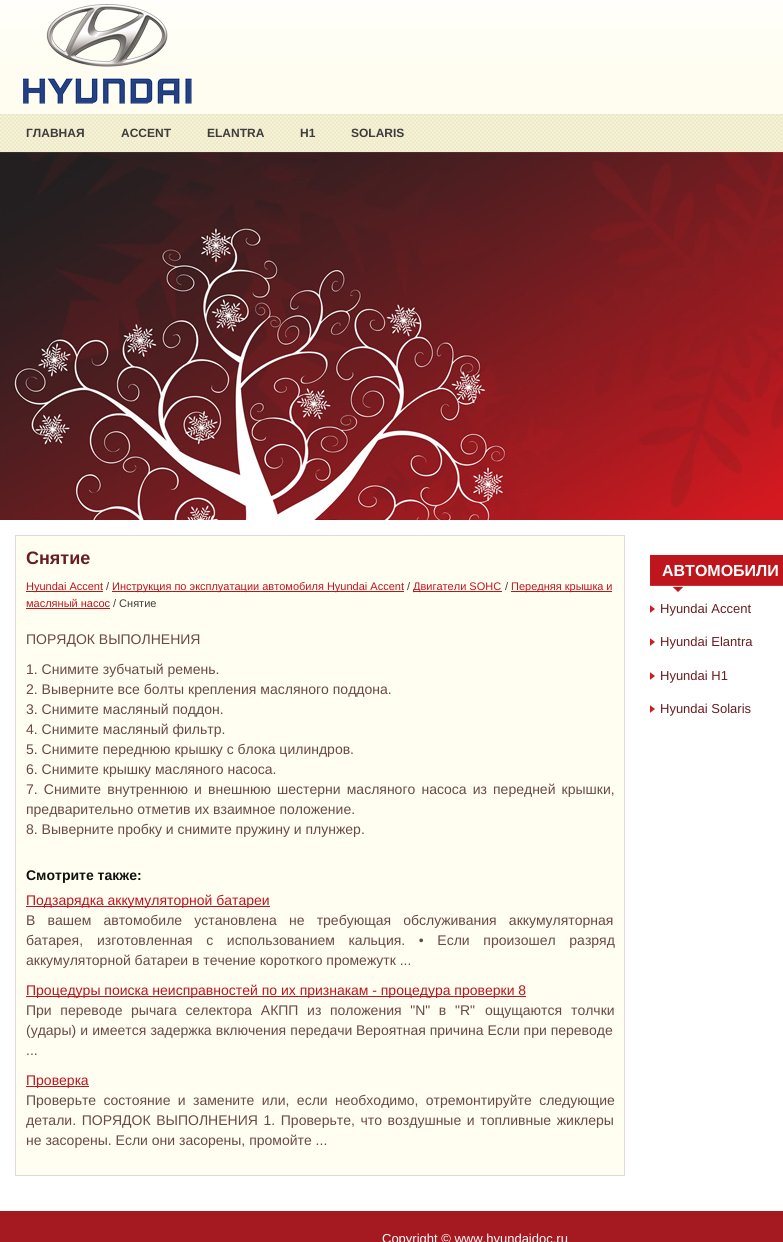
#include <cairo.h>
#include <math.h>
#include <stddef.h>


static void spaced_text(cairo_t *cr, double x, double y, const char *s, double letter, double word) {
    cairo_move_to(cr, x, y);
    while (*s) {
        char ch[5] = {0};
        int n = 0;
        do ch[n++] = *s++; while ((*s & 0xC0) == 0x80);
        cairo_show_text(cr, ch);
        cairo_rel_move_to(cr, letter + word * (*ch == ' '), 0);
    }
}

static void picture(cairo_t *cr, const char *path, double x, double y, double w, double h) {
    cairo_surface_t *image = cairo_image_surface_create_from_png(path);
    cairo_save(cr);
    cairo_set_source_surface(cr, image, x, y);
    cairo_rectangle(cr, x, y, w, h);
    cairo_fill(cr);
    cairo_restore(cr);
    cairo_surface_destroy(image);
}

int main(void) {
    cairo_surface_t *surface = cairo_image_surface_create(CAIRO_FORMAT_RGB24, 783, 1242);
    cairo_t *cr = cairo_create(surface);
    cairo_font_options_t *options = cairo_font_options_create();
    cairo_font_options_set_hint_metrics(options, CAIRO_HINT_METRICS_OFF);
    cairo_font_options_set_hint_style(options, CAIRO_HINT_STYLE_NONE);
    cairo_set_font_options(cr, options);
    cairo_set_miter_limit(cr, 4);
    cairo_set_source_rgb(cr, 1, 1, 1);
    cairo_paint(cr);
    picture(cr, "img1.png", 0, 152, 783, 368);
    picture(cr, "img2.png", 0, 0, 783, 114);
    picture(cr, "img3.png", 23, 4, 169, 100);
    picture(cr, "img4.png", 0, 114, 783, 38);
    cairo_select_font_face(cr, "Liberation Sans", CAIRO_FONT_SLANT_NORMAL, CAIRO_FONT_WEIGHT_BOLD);
    cairo_set_font_size(cr, 12);
    cairo_set_source_rgb(cr, 0.243, 0.235, 0.235);
    cairo_move_to(cr, 26, 137);
    cairo_show_text(cr, "ГЛАВНАЯ");
    cairo_move_to(cr, 121, 137);
    cairo_show_text(cr, "ACCENT");
    cairo_move_to(cr, 207, 137);
    cairo_show_text(cr, "ELANTRA");
    cairo_move_to(cr, 300, 137);
    cairo_show_text(cr, "H1");
    cairo_move_to(cr, 351, 137);
    cairo_show_text(cr, "SOLARIS");
    cairo_set_source_rgb(cr, 1, 0.996, 0.941);
    cairo_rectangle(cr, 15.5, 535.5, 609, 640);
    cairo_fill_preserve(cr);
    cairo_set_source_rgb(cr, 0.882, 0.847, 0.847);
    cairo_set_line_width(cr, 1);
    cairo_stroke(cr);
    cairo_set_font_size(cr, 18);
    cairo_set_source_rgb(cr, 0.408, 0.114, 0.129);
    cairo_move_to(cr, 26, 564);
    cairo_show_text(cr, "Снятие");
    cairo_set_source_rgb(cr, 0.749, 0.082, 0.11);
    cairo_rectangle(cr, 26, 591, 77, 1);
    cairo_fill(cr);
    cairo_select_font_face(cr, "Liberation Sans", CAIRO_FONT_SLANT_NORMAL, CAIRO_FONT_WEIGHT_NORMAL);
    cairo_set_font_size(cr, 11);
    cairo_move_to(cr, 26, 590);
    cairo_show_text(cr, "Hyundai Accent");
    cairo_set_source_rgb(cr, 0.243, 0.235, 0.235);
    cairo_move_to(cr, 106, 590);
    cairo_show_text(cr, "/");
    cairo_set_source_rgb(cr, 0.749, 0.082, 0.11);
    cairo_rectangle(cr, 112, 591, 292, 1);
    cairo_fill(cr);
    cairo_move_to(cr, 112, 590);
    cairo_show_text(cr, "Инструкция по эксплуатации автомобиля Hyundai Accent");
    cairo_set_source_rgb(cr, 0.243, 0.235, 0.235);
    cairo_move_to(cr, 407, 590);
    cairo_show_text(cr, "/");
    cairo_set_source_rgb(cr, 0.749, 0.082, 0.11);
    cairo_rectangle(cr, 413, 591, 89, 1);
    cairo_fill(cr);
    cairo_move_to(cr, 413, 590);
    cairo_show_text(cr, "Двигатели SOHC");
    cairo_set_source_rgb(cr, 0.243, 0.235, 0.235);
    cairo_move_to(cr, 505, 590);
    cairo_show_text(cr, "/");
    cairo_set_source_rgb(cr, 0.749, 0.082, 0.11);
    cairo_rectangle(cr, 511, 591, 101, 1);
    cairo_fill(cr);
    cairo_move_to(cr, 511, 590);
    cairo_show_text(cr, "Передняя крышка и");
    cairo_move_to(cr, 26, 607);
    cairo_show_text(cr, "масляный насос");
    cairo_rectangle(cr, 26, 608, 84, 1);
    cairo_fill(cr);
    cairo_set_source_rgb(cr, 0.243, 0.235, 0.235);
    cairo_move_to(cr, 113, 607);
    cairo_show_text(cr, "/ Снятие");
    cairo_set_font_size(cr, 14);
    cairo_set_source_rgb(cr, 0.416, 0.282, 0.286);
    cairo_move_to(cr, 26, 644);
    cairo_show_text(cr, "ПОРЯДОК ВЫПОЛНЕНИЯ");
    cairo_move_to(cr, 26, 674);
    cairo_show_text(cr, "1. Снимите зубчатый ремень.");
    cairo_move_to(cr, 26, 694);
    cairo_show_text(cr, "2. Выверните все болты крепления масляного поддона.");
    cairo_move_to(cr, 26, 714);
    cairo_show_text(cr, "3. Снимите масляный поддон.");
    cairo_move_to(cr, 26, 734);
    cairo_show_text(cr, "4. Снимите масляный фильтр.");
    cairo_move_to(cr, 26, 754);
    cairo_show_text(cr, "5. Снимите переднюю крышку с блока цилиндров.");
    cairo_move_to(cr, 26, 774);
    cairo_show_text(cr, "6. Снимите крышку масляного насоса.");
    spaced_text(cr, 26, 794, "7. Снимите внутреннюю и внешнюю шестерни масляного насоса из передней крышки,", 0, 2.25);
    cairo_move_to(cr, 26, 814);
    cairo_show_text(cr, "предварительно отметив их взаимное положение.");
    cairo_move_to(cr, 26, 834);
    cairo_show_text(cr, "8. Выверните пробку и снимите пружину и плунжер.");
    cairo_select_font_face(cr, "Liberation Sans", CAIRO_FONT_SLANT_NORMAL, CAIRO_FONT_WEIGHT_BOLD);
    cairo_set_source_rgb(cr, 0.067, 0.067, 0.067);
    cairo_move_to(cr, 26, 880);
    cairo_show_text(cr, "Смотрите также:");
    cairo_set_source_rgb(cr, 0.749, 0.082, 0.11);
    cairo_rectangle(cr, 26, 906, 244, 1);
    cairo_fill(cr);
    cairo_select_font_face(cr, "Liberation Sans", CAIRO_FONT_SLANT_NORMAL, CAIRO_FONT_WEIGHT_NORMAL);
    cairo_move_to(cr, 26, 905);
    cairo_show_text(cr, "Подзарядка аккумуляторной батареи");
    cairo_set_source_rgb(cr, 0.416, 0.282, 0.286);
    spaced_text(cr, 26, 925, "В вашем автомобиле установлена не требующая обслуживания аккумуляторная", 0, 8.25);
    cairo_move_to(cr, 26, 945);
    cairo_show_text(cr, "батарея,");
    spaced_text(cr, 97, 945, "изготовленная с использованием кальция. • Если произошел разряд", 0, 9.75);
    cairo_move_to(cr, 26, 965);
    cairo_show_text(cr, "аккумуляторной батареи в течение короткого промежутк ...");
    cairo_set_source_rgb(cr, 0.749, 0.082, 0.11);
    cairo_rectangle(cr, 26, 996, 500, 1);
    cairo_fill(cr);
    cairo_move_to(cr, 26, 995);
    cairo_show_text(cr, "Процедуры поиска неисправностей по их признакам - процедура проверки 8");
    cairo_set_source_rgb(cr, 0.416, 0.282, 0.286);
    spaced_text(cr, 26, 1015, "При переводе рычага селектора АКПП из положения \"N\" в \"R\"", 0, 4.75);
    spaced_text(cr, 485, 1015, "ощущаются толчки", 0, 5);
    spaced_text(cr, 26, 1035, "(удары) и имеется задержка включения передачи", 0, 0.25);
    cairo_move_to(cr, 356, 1035);
    cairo_show_text(cr, "Вероятная причина Если при переводе");
    cairo_move_to(cr, 26, 1055);
    cairo_show_text(cr, "...");
    cairo_set_source_rgb(cr, 0.749, 0.082, 0.11);
    cairo_rectangle(cr, 26, 1086, 63, 1);
    cairo_fill(cr);
    cairo_move_to(cr, 26, 1085);
    cairo_show_text(cr, "Проверка");
    cairo_set_source_rgb(cr, 0.416, 0.282, 0.286);
    spaced_text(cr, 26, 1105, "Проверьте состояние и замените или, если необходимо, отремонтируйте следующие", 0, 3.5);
    spaced_text(cr, 26, 1125, "детали. ПОРЯДОК ВЫПОЛНЕНИЯ 1. Проверьте, что воздушные и топливные жиклеры", 0, 1.75);
    cairo_move_to(cr, 26, 1145);
    cairo_show_text(cr, "не засорены. Если они засорены, промойте ...");
    picture(cr, "img5.png", 650, 555, 133, 37);
    cairo_select_font_face(cr, "Liberation Sans", CAIRO_FONT_SLANT_NORMAL, CAIRO_FONT_WEIGHT_BOLD);
    cairo_set_font_size(cr, 16);
    cairo_set_source_rgb(cr, 1, 1, 1);
    cairo_move_to(cr, 662, 576);
    cairo_show_text(cr, "АВТОМОБИЛИ");
    picture(cr, "img6.png", 650, 605, 5, 8);
    cairo_select_font_face(cr, "Liberation Sans", CAIRO_FONT_SLANT_NORMAL, CAIRO_FONT_WEIGHT_NORMAL);
    cairo_set_font_size(cr, 13);
    cairo_set_source_rgb(cr, 0.408, 0.114, 0.129);
    cairo_move_to(cr, 660, 613);
    cairo_show_text(cr, "Hyundai Accent");
    picture(cr, "img6.png", 650, 638, 5, 8);
    cairo_move_to(cr, 660, 646);
    cairo_show_text(cr, "Hyundai Elantra");
    picture(cr, "img6.png", 650, 672, 5, 8);
    cairo_move_to(cr, 660, 680);
    cairo_show_text(cr, "Hyundai H1");
    picture(cr, "img6.png", 650, 705, 5, 8);
    cairo_move_to(cr, 660, 713);
    cairo_show_text(cr, "Hyundai Solaris");
    cairo_set_source_rgb(cr, 0.647, 0.102, 0.129);
    cairo_rectangle(cr, 0, 1211, 783, 31);
    cairo_fill(cr);
    cairo_set_source_rgb(cr, 1, 1, 1);
    cairo_move_to(cr, 382, 1243);
    cairo_show_text(cr, "Copyright © www.hyundaidoc.ru");
    cairo_surface_write_to_png(surface, "page.png");
    cairo_font_options_destroy(options);
    cairo_destroy(cr);
    cairo_surface_destroy(surface);
    return 0;
}
